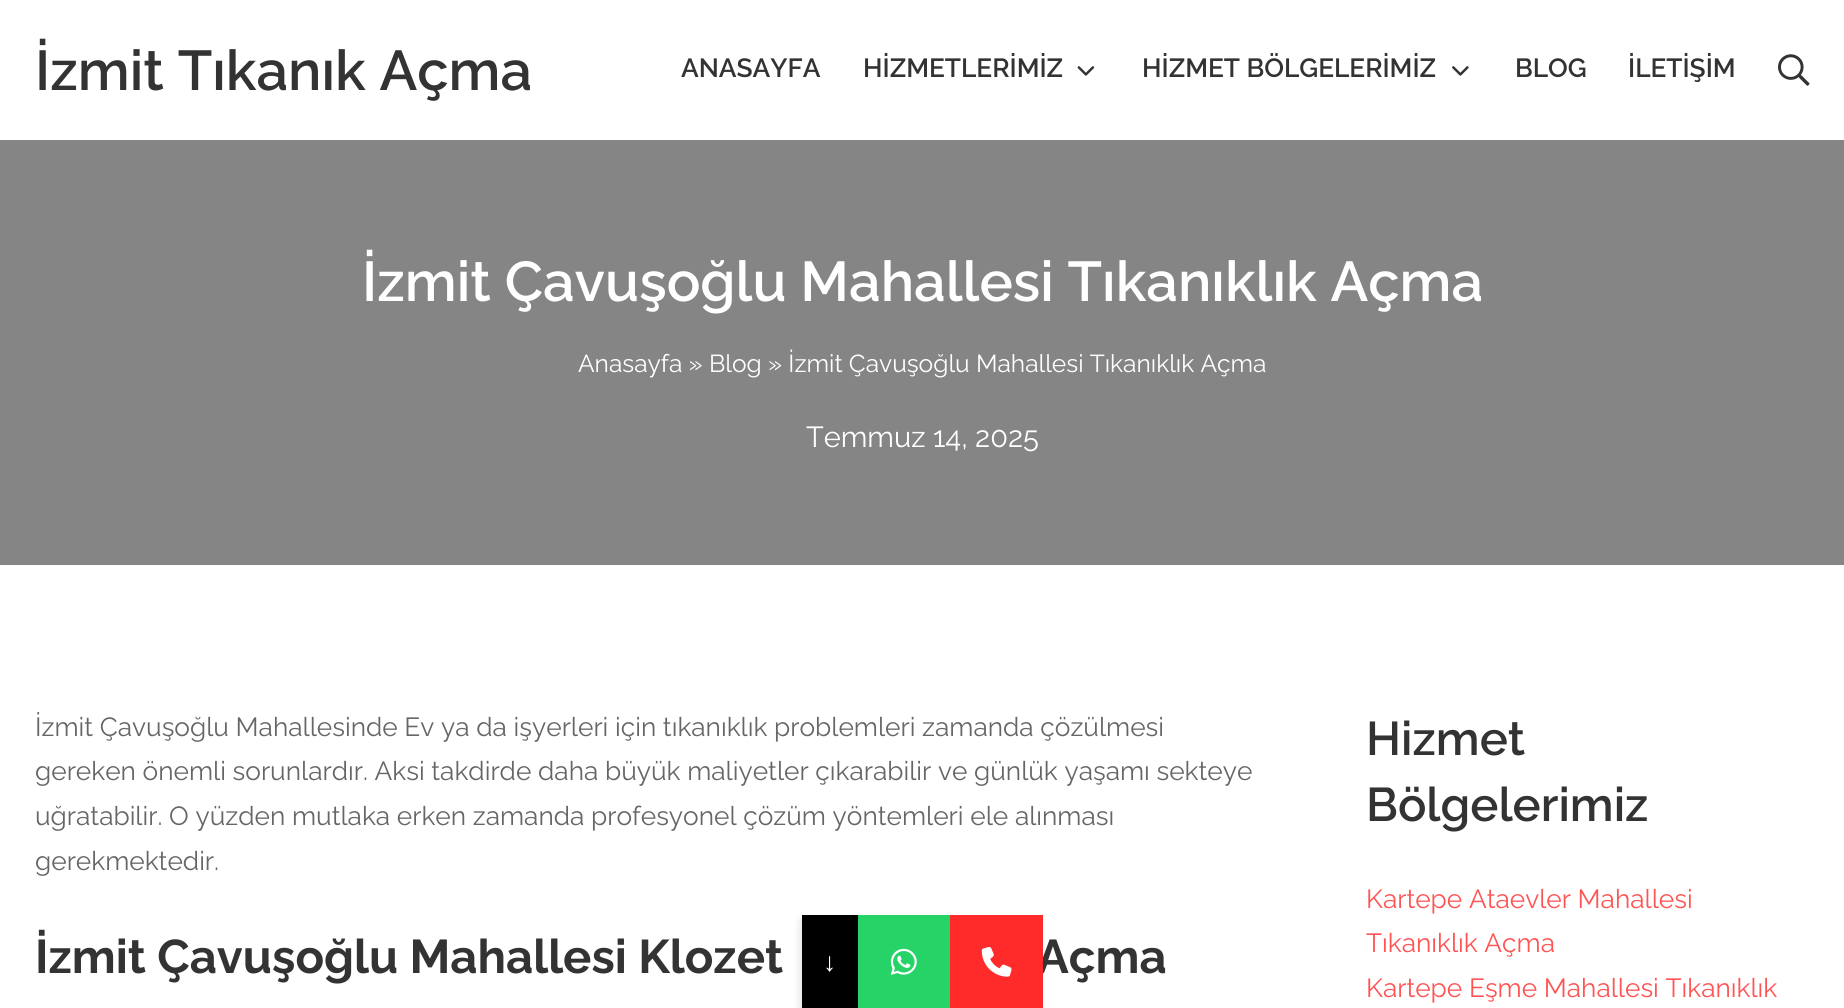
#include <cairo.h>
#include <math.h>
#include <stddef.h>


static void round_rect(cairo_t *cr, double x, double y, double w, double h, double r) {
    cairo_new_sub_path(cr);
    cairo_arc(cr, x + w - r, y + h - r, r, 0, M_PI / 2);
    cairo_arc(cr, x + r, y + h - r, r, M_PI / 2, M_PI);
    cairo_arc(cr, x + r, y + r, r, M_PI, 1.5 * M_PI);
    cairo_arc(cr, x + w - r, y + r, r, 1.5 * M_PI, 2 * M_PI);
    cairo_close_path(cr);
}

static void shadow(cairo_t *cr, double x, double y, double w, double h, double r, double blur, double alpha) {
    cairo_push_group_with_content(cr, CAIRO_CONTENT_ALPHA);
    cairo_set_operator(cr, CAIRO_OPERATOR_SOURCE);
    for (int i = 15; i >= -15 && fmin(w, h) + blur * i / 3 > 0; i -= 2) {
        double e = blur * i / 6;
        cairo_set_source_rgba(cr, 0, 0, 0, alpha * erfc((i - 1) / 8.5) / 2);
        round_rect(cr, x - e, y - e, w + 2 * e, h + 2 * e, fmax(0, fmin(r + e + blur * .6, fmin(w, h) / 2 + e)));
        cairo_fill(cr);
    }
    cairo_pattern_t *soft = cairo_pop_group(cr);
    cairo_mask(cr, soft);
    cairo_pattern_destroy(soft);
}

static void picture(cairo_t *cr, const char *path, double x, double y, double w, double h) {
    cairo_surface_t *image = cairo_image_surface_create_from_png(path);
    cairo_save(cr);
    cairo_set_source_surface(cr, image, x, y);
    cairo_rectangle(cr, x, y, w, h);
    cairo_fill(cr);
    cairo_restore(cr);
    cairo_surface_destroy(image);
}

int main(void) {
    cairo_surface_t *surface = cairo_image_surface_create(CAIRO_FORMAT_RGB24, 1844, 1008);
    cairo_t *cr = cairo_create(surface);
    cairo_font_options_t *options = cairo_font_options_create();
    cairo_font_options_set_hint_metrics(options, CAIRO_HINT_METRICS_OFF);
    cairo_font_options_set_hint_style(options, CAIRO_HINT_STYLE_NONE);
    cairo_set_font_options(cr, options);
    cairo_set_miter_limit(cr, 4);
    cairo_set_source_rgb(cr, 1, 1, 1);
    cairo_paint(cr);
    cairo_select_font_face(cr, "Raleway SemiBold", CAIRO_FONT_SLANT_NORMAL, CAIRO_FONT_WEIGHT_NORMAL);
    cairo_set_font_size(cr, 56);
    cairo_set_source_rgb(cr, 0.2, 0.2, 0.2);
    cairo_move_to(cr, 35, 90);
    cairo_show_text(cr, "İzmit Tıkanık Açma");
    cairo_set_font_size(cr, 26.25);
    cairo_move_to(cr, 681, 77);
    cairo_show_text(cr, "ANASAYFA");
    cairo_move_to(cr, 863, 77);
    cairo_show_text(cr, "HİZMETLERİMİZ");
    picture(cr, "img1.png", 1077, 66, 18, 10);
    cairo_move_to(cr, 1142, 77);
    cairo_show_text(cr, "HİZMET BÖLGELERİMİZ");
    picture(cr, "img2.png", 1452, 66, 17, 10);
    cairo_move_to(cr, 1515, 77);
    cairo_show_text(cr, "BLOG");
    cairo_move_to(cr, 1628, 77);
    cairo_show_text(cr, "İLETİŞİM");
    picture(cr, "img3.png", 1778, 54, 32, 32);
    cairo_set_source_rgb(cr, 0.522, 0.522, 0.522);
    cairo_rectangle(cr, 0, 140, 1844, 425);
    cairo_fill(cr);
    cairo_set_font_size(cr, 56);
    cairo_set_source_rgb(cr, 1, 1, 1);
    cairo_move_to(cr, 362, 301);
    cairo_show_text(cr, "İzmit Çavuşoğlu Mahallesi Tıkanıklık Açma");
    cairo_select_font_face(cr, "Raleway", CAIRO_FONT_SLANT_NORMAL, CAIRO_FONT_WEIGHT_NORMAL);
    cairo_set_font_size(cr, 24.55);
    cairo_move_to(cr, 578, 372);
    cairo_show_text(cr, "Anasayfa » Blog » İzmit Çavuşoğlu Mahallesi Tıkanıklık Açma");
    cairo_set_font_size(cr, 29);
    cairo_move_to(cr, 806, 447);
    cairo_show_text(cr, "Temmuz 14, 2025");
    cairo_set_font_size(cr, 26.25);
    cairo_set_source_rgb(cr, 0.4, 0.4, 0.4);
    cairo_move_to(cr, 35, 736);
    cairo_show_text(cr, "İzmit Çavuşoğlu Mahallesinde Ev ya da işyerleri için tıkanıklık problemleri zamanda çözülmesi");
    cairo_move_to(cr, 35, 780);
    cairo_show_text(cr, "gereken önemli sorunlardır. Aksi takdirde daha büyük maliyetler çıkarabilir ve günlük yaşamı sekteye");
    cairo_move_to(cr, 35, 825);
    cairo_show_text(cr, "uğratabilir. O yüzden mutlaka erken zamanda profesyonel çözüm yöntemleri ele alınması");
    cairo_move_to(cr, 35, 870);
    cairo_show_text(cr, "gerekmektedir.");
    cairo_select_font_face(cr, "Raleway", CAIRO_FONT_SLANT_NORMAL, CAIRO_FONT_WEIGHT_BOLD);
    cairo_set_font_size(cr, 47.25);
    cairo_set_source_rgb(cr, 0.2, 0.2, 0.2);
    cairo_move_to(cr, 35, 973);
    cairo_show_text(cr, "İzmit Çavuşoğlu Mahallesi Klozet");
    cairo_move_to(cr, 1037, 973);
    cairo_show_text(cr, "Açma");
    cairo_select_font_face(cr, "Raleway SemiBold", CAIRO_FONT_SLANT_NORMAL, CAIRO_FONT_WEIGHT_NORMAL);
    cairo_move_to(cr, 1366, 755);
    cairo_show_text(cr, "Hizmet");
    cairo_move_to(cr, 1366, 821);
    cairo_show_text(cr, "Bölgelerimiz");
    cairo_select_font_face(cr, "Raleway", CAIRO_FONT_SLANT_NORMAL, CAIRO_FONT_WEIGHT_NORMAL);
    cairo_set_font_size(cr, 26.25);
    cairo_set_source_rgb(cr, 0.996, 0.329, 0.329);
    cairo_move_to(cr, 1366, 908);
    cairo_show_text(cr, "Kartepe Ataevler Mahallesi");
    cairo_move_to(cr, 1366, 952);
    cairo_show_text(cr, "Tıkanıklık Açma");
    cairo_move_to(cr, 1366, 997);
    cairo_show_text(cr, "Kartepe Eşme Mahallesi Tıkanıklık");
    cairo_set_source_rgb(cr, 0, 0, 0);
    shadow(cr, 802, 921, 56, 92, 0, 5, 0.16);
    cairo_set_source_rgb(cr, 0, 0, 0);
    cairo_rectangle(cr, 802, 915, 56, 93);
    cairo_fill(cr);
    cairo_select_font_face(cr, "Liberation Serif", CAIRO_FONT_SLANT_NORMAL, CAIRO_FONT_WEIGHT_NORMAL);
    cairo_set_source_rgb(cr, 1, 1, 1);
    cairo_move_to(cr, 823, 971);
    cairo_show_text(cr, "↓");
    cairo_set_source_rgb(cr, 0.149, 0.827, 0.404);
    cairo_rectangle(cr, 858, 915, 92, 93);
    cairo_fill(cr);
    picture(cr, "img4.png", 890, 948, 27, 27);
    cairo_set_source_rgb(cr, 1, 0.169, 0.169);
    cairo_rectangle(cr, 950, 915, 93, 93);
    cairo_fill(cr);
    picture(cr, "img5.png", 981, 947, 31, 30);
    cairo_surface_write_to_png(surface, "page.png");
    cairo_font_options_destroy(options);
    cairo_destroy(cr);
    cairo_surface_destroy(surface);
    return 0;
}
